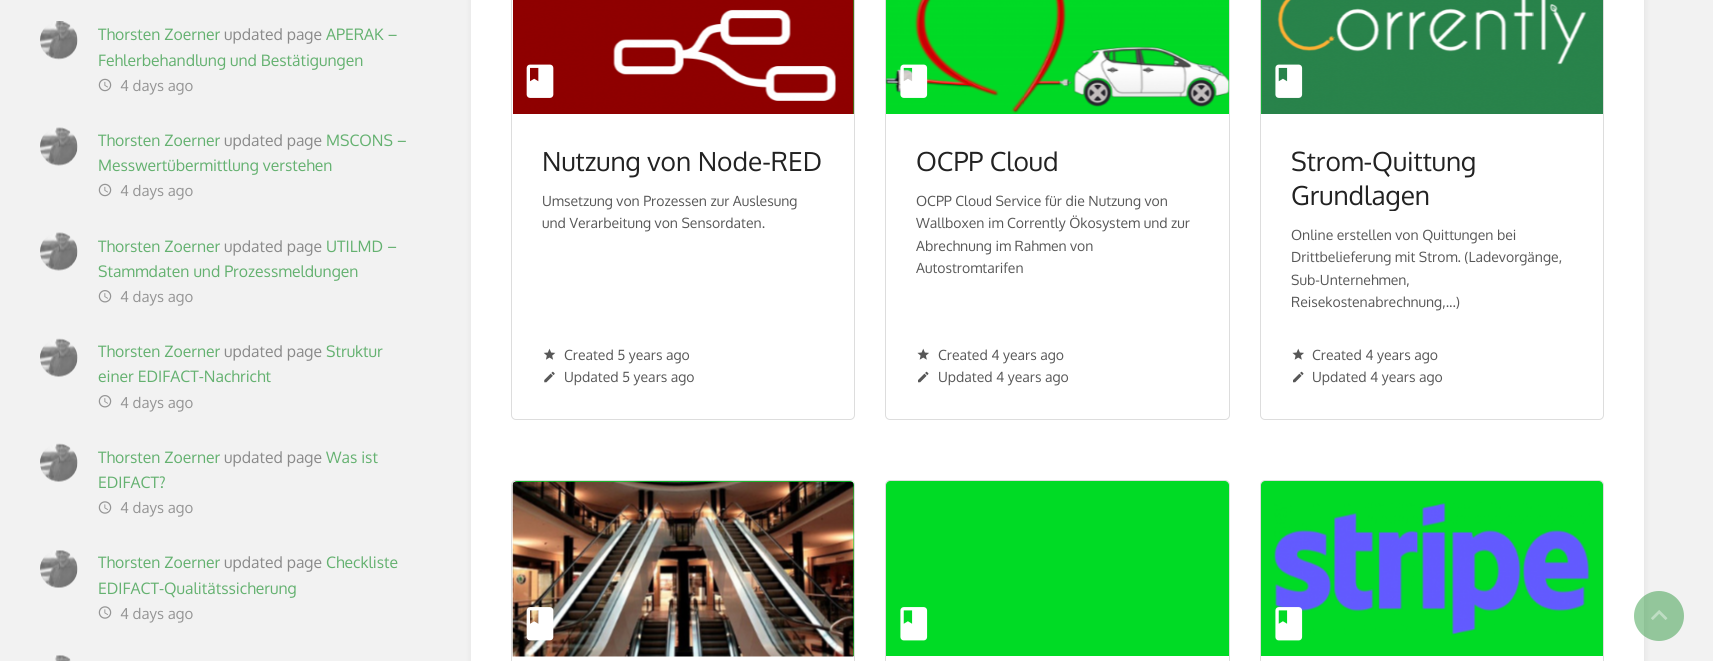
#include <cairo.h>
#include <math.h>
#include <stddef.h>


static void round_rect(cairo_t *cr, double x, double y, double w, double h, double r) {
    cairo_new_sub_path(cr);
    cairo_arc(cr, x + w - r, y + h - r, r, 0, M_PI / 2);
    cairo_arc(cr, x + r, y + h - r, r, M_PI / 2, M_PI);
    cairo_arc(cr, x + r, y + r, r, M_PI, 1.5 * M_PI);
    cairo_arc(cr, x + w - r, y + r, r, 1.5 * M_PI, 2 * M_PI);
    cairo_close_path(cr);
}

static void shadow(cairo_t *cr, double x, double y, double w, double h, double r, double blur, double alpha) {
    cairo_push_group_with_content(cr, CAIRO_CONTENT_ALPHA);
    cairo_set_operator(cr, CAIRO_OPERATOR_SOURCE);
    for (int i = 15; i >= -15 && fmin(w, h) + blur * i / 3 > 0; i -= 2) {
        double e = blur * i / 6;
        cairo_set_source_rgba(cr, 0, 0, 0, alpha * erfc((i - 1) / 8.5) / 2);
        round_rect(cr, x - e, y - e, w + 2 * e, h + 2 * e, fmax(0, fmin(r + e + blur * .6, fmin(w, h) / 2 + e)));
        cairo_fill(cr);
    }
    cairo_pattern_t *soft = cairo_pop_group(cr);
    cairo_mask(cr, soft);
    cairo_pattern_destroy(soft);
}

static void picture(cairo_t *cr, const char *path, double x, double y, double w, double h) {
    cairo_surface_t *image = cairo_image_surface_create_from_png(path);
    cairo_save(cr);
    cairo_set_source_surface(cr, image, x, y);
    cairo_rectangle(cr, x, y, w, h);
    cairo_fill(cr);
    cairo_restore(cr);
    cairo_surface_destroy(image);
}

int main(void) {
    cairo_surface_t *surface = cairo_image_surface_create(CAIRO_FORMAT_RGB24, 1713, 661);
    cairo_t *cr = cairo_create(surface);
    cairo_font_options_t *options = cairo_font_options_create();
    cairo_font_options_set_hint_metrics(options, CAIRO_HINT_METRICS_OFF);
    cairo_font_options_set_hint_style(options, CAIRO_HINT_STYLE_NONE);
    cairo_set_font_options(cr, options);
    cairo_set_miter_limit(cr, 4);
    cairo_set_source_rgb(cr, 0.949, 0.949, 0.949);
    cairo_paint(cr);
    picture(cr, "img1.png", 40, 21, 38, 39);
    cairo_select_font_face(cr, "Oxygen", CAIRO_FONT_SLANT_NORMAL, CAIRO_FONT_WEIGHT_NORMAL);
    cairo_set_font_size(cr, 15.75);
    cairo_set_source_rgb(cr, 0.392, 0.694, 0.439);
    cairo_move_to(cr, 98, 40);
    cairo_show_text(cr, "Thorsten Zoerner");
    cairo_set_source_rgb(cr, 0.541, 0.541, 0.541);
    cairo_move_to(cr, 224, 40);
    cairo_show_text(cr, "updated page");
    cairo_set_source_rgb(cr, 0.392, 0.694, 0.439);
    cairo_move_to(cr, 326, 40);
    cairo_show_text(cr, "APERAK –");
    cairo_move_to(cr, 98, 66);
    cairo_show_text(cr, "Fehlerbehandlung und Bestätigungen");
    picture(cr, "img2.png", 98, 78, 14, 14);
    cairo_set_font_size(cr, 15);
    cairo_set_source_rgb(cr, 0.584, 0.584, 0.584);
    cairo_move_to(cr, 120, 91);
    cairo_show_text(cr, "4 days ago");
    picture(cr, "img3.png", 40, 127, 38, 39);
    cairo_set_font_size(cr, 15.75);
    cairo_set_source_rgb(cr, 0.392, 0.694, 0.439);
    cairo_move_to(cr, 98, 146);
    cairo_show_text(cr, "Thorsten Zoerner");
    cairo_set_source_rgb(cr, 0.541, 0.541, 0.541);
    cairo_move_to(cr, 224, 146);
    cairo_show_text(cr, "updated page");
    cairo_set_source_rgb(cr, 0.392, 0.694, 0.439);
    cairo_move_to(cr, 326, 146);
    cairo_show_text(cr, "MSCONS –");
    cairo_move_to(cr, 98, 171);
    cairo_show_text(cr, "Messwertübermittlung verstehen");
    picture(cr, "img2.png", 98, 183, 14, 14);
    cairo_set_font_size(cr, 15);
    cairo_set_source_rgb(cr, 0.584, 0.584, 0.584);
    cairo_move_to(cr, 120, 196);
    cairo_show_text(cr, "4 days ago");
    picture(cr, "img3.png", 40, 232, 38, 39);
    cairo_set_font_size(cr, 15.75);
    cairo_set_source_rgb(cr, 0.392, 0.694, 0.439);
    cairo_move_to(cr, 98, 252);
    cairo_show_text(cr, "Thorsten Zoerner");
    cairo_set_source_rgb(cr, 0.541, 0.541, 0.541);
    cairo_move_to(cr, 224, 252);
    cairo_show_text(cr, "updated page");
    cairo_set_source_rgb(cr, 0.392, 0.694, 0.439);
    cairo_move_to(cr, 326, 252);
    cairo_show_text(cr, "UTILMD –");
    cairo_move_to(cr, 98, 277);
    cairo_show_text(cr, "Stammdaten und Prozessmeldungen");
    picture(cr, "img4.png", 98, 290, 14, 13);
    cairo_set_font_size(cr, 15);
    cairo_set_source_rgb(cr, 0.584, 0.584, 0.584);
    cairo_move_to(cr, 120, 302);
    cairo_show_text(cr, "4 days ago");
    picture(cr, "img5.png", 40, 338, 38, 39);
    cairo_set_font_size(cr, 15.75);
    cairo_set_source_rgb(cr, 0.392, 0.694, 0.439);
    cairo_move_to(cr, 98, 357);
    cairo_show_text(cr, "Thorsten Zoerner");
    cairo_set_source_rgb(cr, 0.541, 0.541, 0.541);
    cairo_move_to(cr, 224, 357);
    cairo_show_text(cr, "updated page");
    cairo_set_source_rgb(cr, 0.392, 0.694, 0.439);
    cairo_move_to(cr, 326, 357);
    cairo_show_text(cr, "Struktur");
    cairo_move_to(cr, 98, 382);
    cairo_show_text(cr, "einer EDIFACT-Nachricht");
    picture(cr, "img4.png", 98, 395, 14, 13);
    cairo_set_font_size(cr, 15);
    cairo_set_source_rgb(cr, 0.584, 0.584, 0.584);
    cairo_move_to(cr, 120, 408);
    cairo_show_text(cr, "4 days ago");
    picture(cr, "img5.png", 40, 443, 38, 39);
    cairo_set_font_size(cr, 15.75);
    cairo_set_source_rgb(cr, 0.392, 0.694, 0.439);
    cairo_move_to(cr, 98, 463);
    cairo_show_text(cr, "Thorsten Zoerner");
    cairo_set_source_rgb(cr, 0.541, 0.541, 0.541);
    cairo_move_to(cr, 224, 463);
    cairo_show_text(cr, "updated page");
    cairo_set_source_rgb(cr, 0.392, 0.694, 0.439);
    cairo_move_to(cr, 326, 463);
    cairo_show_text(cr, "Was ist");
    cairo_move_to(cr, 98, 488);
    cairo_show_text(cr, "EDIFACT?");
    picture(cr, "img6.png", 98, 501, 14, 13);
    cairo_set_font_size(cr, 15);
    cairo_set_source_rgb(cr, 0.584, 0.584, 0.584);
    cairo_move_to(cr, 120, 513);
    cairo_show_text(cr, "4 days ago");
    picture(cr, "img7.png", 40, 550, 38, 38);
    cairo_set_font_size(cr, 15.75);
    cairo_set_source_rgb(cr, 0.392, 0.694, 0.439);
    cairo_move_to(cr, 98, 568);
    cairo_show_text(cr, "Thorsten Zoerner");
    cairo_set_source_rgb(cr, 0.541, 0.541, 0.541);
    cairo_move_to(cr, 224, 568);
    cairo_show_text(cr, "updated page");
    cairo_set_source_rgb(cr, 0.392, 0.694, 0.439);
    cairo_move_to(cr, 326, 568);
    cairo_show_text(cr, "Checkliste");
    cairo_move_to(cr, 98, 594);
    cairo_show_text(cr, "EDIFACT-Qualitätssicherung");
    picture(cr, "img6.png", 98, 606, 14, 13);
    cairo_set_font_size(cr, 15);
    cairo_set_source_rgb(cr, 0.584, 0.584, 0.584);
    cairo_move_to(cr, 120, 619);
    cairo_show_text(cr, "4 days ago");
    picture(cr, "img8.png", 53, 655, 18, 6);
    cairo_set_source_rgb(cr, 0, 0, 0);
    shadow(cr, 473, -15, 1170, 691, 2.5, 4, 0.1);
    cairo_set_source_rgb(cr, 1, 1, 1);
    cairo_rectangle(cr, 471, 0, 1173, 661);
    cairo_fill(cr);
    round_rect(cr, 511.5, -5.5, 343, 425, 4.5);
    cairo_set_source_rgb(cr, 0.867, 0.867, 0.867);
    cairo_set_line_width(cr, 1);
    cairo_stroke(cr);
    cairo_set_source_rgb(cr, 0, 0.859, 0.145);
    cairo_rectangle(cr, 853, 0, 1, 114);
    cairo_fill(cr);
    picture(cr, "img9.png", 513, 0, 342, 114);
    picture(cr, "img10.png", 526, 64, 28, 34);
    cairo_set_font_size(cr, 26.25);
    cairo_set_source_rgb(cr, 0.133, 0.133, 0.133);
    cairo_move_to(cr, 542, 171);
    cairo_show_text(cr, "Nutzung von Node-RED");
    cairo_set_font_size(cr, 14);
    cairo_set_source_rgb(cr, 0.341, 0.341, 0.341);
    cairo_move_to(cr, 542, 206);
    cairo_show_text(cr, "Umsetzung von Prozessen zur Auslesung");
    cairo_move_to(cr, 542, 228);
    cairo_show_text(cr, "und Verarbeitung von Sensordaten.");
    picture(cr, "img11.png", 543, 348, 13, 12);
    cairo_move_to(cr, 564, 360);
    cairo_show_text(cr, "Created 5 years ago");
    picture(cr, "img12.png", 544, 371, 11, 12);
    cairo_move_to(cr, 564, 382);
    cairo_show_text(cr, "Updated 5 years ago");
    round_rect(cr, 885.5, -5.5, 344, 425, 4.5);
    cairo_set_source_rgb(cr, 0.867, 0.867, 0.867);
    cairo_stroke(cr);
    cairo_set_source_rgb(cr, 0, 0.859, 0.145);
    cairo_rectangle(cr, 886, 0, 343, 114);
    cairo_fill(cr);
    picture(cr, "img13.png", 885, 0, 344, 113);
    picture(cr, "img14.png", 900, 64, 28, 34);
    cairo_set_font_size(cr, 26.25);
    cairo_set_source_rgb(cr, 0.133, 0.133, 0.133);
    cairo_move_to(cr, 916, 171);
    cairo_show_text(cr, "OCPP Cloud");
    cairo_set_font_size(cr, 14);
    cairo_set_source_rgb(cr, 0.341, 0.341, 0.341);
    cairo_move_to(cr, 916, 206);
    cairo_show_text(cr, "OCPP Cloud Service für die Nutzung von");
    cairo_move_to(cr, 916, 228);
    cairo_show_text(cr, "Wallboxen im Corrently Ökosystem und zur");
    cairo_move_to(cr, 916, 251);
    cairo_show_text(cr, "Abrechnung im Rahmen von");
    cairo_move_to(cr, 916, 273);
    cairo_show_text(cr, "Autostromtarifen");
    picture(cr, "img15.png", 917, 348, 12, 12);
    cairo_move_to(cr, 938, 360);
    cairo_show_text(cr, "Created 4 years ago");
    picture(cr, "img16.png", 918, 371, 11, 12);
    cairo_move_to(cr, 938, 382);
    cairo_show_text(cr, "Updated 4 years ago");
    round_rect(cr, 1260.5, -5.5, 343, 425, 4.5);
    cairo_set_source_rgb(cr, 0.867, 0.867, 0.867);
    cairo_stroke(cr);
    cairo_set_source_rgb(cr, 0, 0.859, 0.145);
    cairo_rectangle(cr, 1261, 0, 1, 114);
    cairo_fill(cr);
    picture(cr, "img17.png", 1260, 0, 343, 114);
    picture(cr, "img18.png", 1275, 64, 28, 34);
    cairo_set_font_size(cr, 26.25);
    cairo_set_source_rgb(cr, 0.133, 0.133, 0.133);
    cairo_move_to(cr, 1291, 171);
    cairo_show_text(cr, "Strom-Quittung");
    cairo_save(cr);
    cairo_rectangle(cr, 1291, 144, 282, 67);
    cairo_clip(cr);
    cairo_move_to(cr, 1291, 205);
    cairo_show_text(cr, "Grundlagen");
    cairo_restore(cr);
    cairo_set_font_size(cr, 14);
    cairo_set_source_rgb(cr, 0.341, 0.341, 0.341);
    cairo_move_to(cr, 1291, 240);
    cairo_show_text(cr, "Online erstellen von Quittungen bei");
    cairo_move_to(cr, 1291, 262);
    cairo_show_text(cr, "Drittbelieferung mit Strom. (Ladevorgänge,");
    cairo_move_to(cr, 1291, 285);
    cairo_show_text(cr, "Sub-Unternehmen,");
    cairo_move_to(cr, 1291, 307);
    cairo_show_text(cr, "Reisekostenabrechnung,...)");
    picture(cr, "img15.png", 1292, 348, 12, 12);
    cairo_move_to(cr, 1312, 360);
    cairo_show_text(cr, "Created 4 years ago");
    picture(cr, "img16.png", 1293, 371, 11, 12);
    cairo_move_to(cr, 1312, 382);
    cairo_show_text(cr, "Updated 4 years ago");
    round_rect(cr, 511.5, 480.5, 343, 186, 4.5);
    cairo_set_source_rgb(cr, 0.867, 0.867, 0.867);
    cairo_stroke(cr);
    cairo_set_source_rgb(cr, 0, 0.859, 0.145);
    cairo_new_path(cr);
    cairo_move_to(cr, 517, 481);
    cairo_line_to(cr, 850, 481);
    cairo_curve_to(cr, 852, 481, 854, 483, 854, 485);
    cairo_line_to(cr, 854, 656);
    cairo_line_to(cr, 513, 656);
    cairo_line_to(cr, 513, 485);
    cairo_curve_to(cr, 513, 483, 515, 481, 517, 481);
    cairo_close_path(cr);
    cairo_fill(cr);
    picture(cr, "img19.png", 512, 481, 342, 176);
    picture(cr, "img20.png", 526, 607, 28, 34);
    round_rect(cr, 885.5, 480.5, 344, 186, 4.5);
    cairo_set_source_rgb(cr, 0.867, 0.867, 0.867);
    cairo_stroke(cr);
    cairo_set_source_rgb(cr, 0, 0.859, 0.145);
    cairo_new_path(cr);
    cairo_move_to(cr, 890, 481);
    cairo_line_to(cr, 1225, 481);
    cairo_curve_to(cr, 1227, 481, 1229, 483, 1229, 485);
    cairo_line_to(cr, 1229, 656);
    cairo_line_to(cr, 886, 656);
    cairo_line_to(cr, 886, 485);
    cairo_curve_to(cr, 886, 483, 888, 481, 890, 481);
    cairo_close_path(cr);
    cairo_fill(cr);
    picture(cr, "img21.png", 900, 607, 28, 34);
    round_rect(cr, 1260.5, 480.5, 343, 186, 4.5);
    cairo_set_source_rgb(cr, 0.867, 0.867, 0.867);
    cairo_stroke(cr);
    cairo_set_source_rgb(cr, 0, 0.859, 0.145);
    cairo_new_path(cr);
    cairo_move_to(cr, 1265, 481);
    cairo_line_to(cr, 1599, 481);
    cairo_curve_to(cr, 1601, 481, 1603, 483, 1603, 485);
    cairo_line_to(cr, 1603, 656);
    cairo_line_to(cr, 1261, 656);
    cairo_line_to(cr, 1261, 485);
    cairo_curve_to(cr, 1261, 483, 1263, 481, 1265, 481);
    cairo_close_path(cr);
    cairo_fill(cr);
    picture(cr, "img22.png", 1274, 502, 316, 133);
    picture(cr, "img23.png", 1275, 607, 28, 34);
    cairo_set_source_rgba(cr, 0.02, 0.522, 0.102, 0.4);
    cairo_arc(cr, 1659, 616, 25, 0, 2 * M_PI);
    cairo_fill(cr);
    picture(cr, "img24.png", 1651, 610, 17, 10);
    cairo_surface_write_to_png(surface, "page.png");
    cairo_font_options_destroy(options);
    cairo_destroy(cr);
    cairo_surface_destroy(surface);
    return 0;
}
